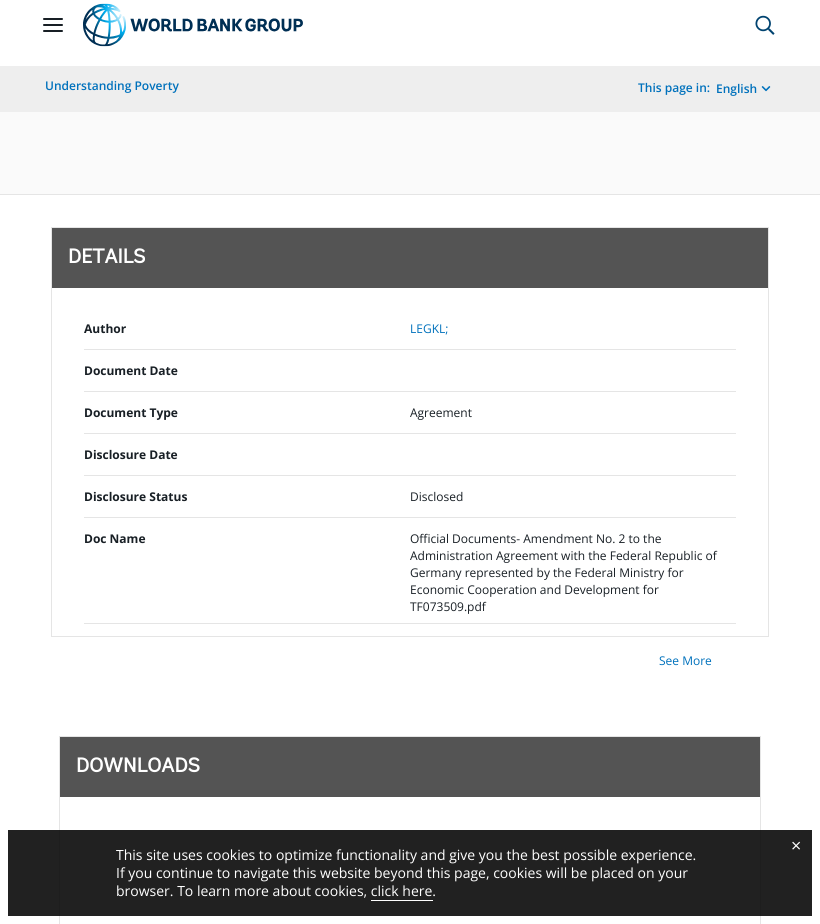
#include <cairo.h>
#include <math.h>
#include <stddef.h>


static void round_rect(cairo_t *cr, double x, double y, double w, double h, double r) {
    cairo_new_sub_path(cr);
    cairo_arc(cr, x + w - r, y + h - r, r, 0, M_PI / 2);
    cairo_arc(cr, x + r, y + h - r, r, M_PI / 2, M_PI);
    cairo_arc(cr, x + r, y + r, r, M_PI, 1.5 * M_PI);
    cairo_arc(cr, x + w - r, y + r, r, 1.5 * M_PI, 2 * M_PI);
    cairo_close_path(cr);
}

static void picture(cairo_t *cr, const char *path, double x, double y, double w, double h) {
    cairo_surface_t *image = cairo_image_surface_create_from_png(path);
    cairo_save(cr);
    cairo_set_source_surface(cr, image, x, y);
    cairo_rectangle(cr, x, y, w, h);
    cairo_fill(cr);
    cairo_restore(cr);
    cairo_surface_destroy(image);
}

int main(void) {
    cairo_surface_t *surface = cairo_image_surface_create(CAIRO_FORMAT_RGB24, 820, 924);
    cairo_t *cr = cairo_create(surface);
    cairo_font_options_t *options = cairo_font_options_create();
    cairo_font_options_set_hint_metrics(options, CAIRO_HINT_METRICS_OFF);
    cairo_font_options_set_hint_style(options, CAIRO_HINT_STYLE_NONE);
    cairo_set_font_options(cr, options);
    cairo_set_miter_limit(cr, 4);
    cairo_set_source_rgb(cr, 1, 1, 1);
    cairo_paint(cr);
    cairo_set_source_rgb(cr, 0.094, 0.122, 0.145);
    round_rect(cr, 43, 24, 20, 2, 1);
    cairo_fill(cr);
    round_rect(cr, 43, 18, 20, 2, 1);
    cairo_fill(cr);
    round_rect(cr, 43, 30, 20, 2, 1);
    cairo_fill(cr);
    picture(cr, "img1.png", 83, 3, 220, 44);
    picture(cr, "img2.png", 755, 15, 20, 20);
    cairo_set_source_rgb(cr, 0.933, 0.933, 0.933);
    cairo_rectangle(cr, 0, 66, 820, 46);
    cairo_fill(cr);
    cairo_select_font_face(cr, "Open Sans SemiBold", CAIRO_FONT_SLANT_NORMAL, CAIRO_FONT_WEIGHT_NORMAL);
    cairo_set_font_size(cr, 12);
    cairo_set_source_rgb(cr, 0, 0.443, 0.737);
    cairo_move_to(cr, 45, 90);
    cairo_show_text(cr, "Understanding Poverty");
    cairo_move_to(cr, 638, 92);
    cairo_show_text(cr, "This page in:");
    cairo_move_to(cr, 716, 93);
    cairo_show_text(cr, "English");
    picture(cr, "img3.png", 761, 86, 10, 6);
    cairo_set_source_rgb(cr, 0.98, 0.98, 0.98);
    cairo_rectangle(cr, 0, 112, 820, 82);
    cairo_fill(cr);
    cairo_set_source_rgb(cr, 0.898, 0.898, 0.898);
    cairo_rectangle(cr, 0, 194, 820, 1);
    cairo_fill(cr);
    cairo_rectangle(cr, 51.5, 227.5, 717, 409);
    cairo_set_line_width(cr, 1);
    cairo_stroke(cr);
    cairo_set_source_rgb(cr, 0.329, 0.329, 0.329);
    cairo_rectangle(cr, 52, 228, 716, 60);
    cairo_fill(cr);
    cairo_select_font_face(cr, "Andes", CAIRO_FONT_SLANT_NORMAL, CAIRO_FONT_WEIGHT_BOLD);
    cairo_set_font_size(cr, 20);
    cairo_set_source_rgb(cr, 1, 1, 1);
    cairo_move_to(cr, 68, 263);
    cairo_show_text(cr, "DETAILS");
    cairo_set_source_rgb(cr, 0.898, 0.898, 0.898);
    cairo_rectangle(cr, 84, 349, 652, 1);
    cairo_fill(cr);
    cairo_select_font_face(cr, "Open Sans", CAIRO_FONT_SLANT_NORMAL, CAIRO_FONT_WEIGHT_BOLD);
    cairo_set_font_size(cr, 12);
    cairo_set_source_rgb(cr, 0.094, 0.122, 0.145);
    cairo_move_to(cr, 84, 333);
    cairo_show_text(cr, "Author");
    cairo_select_font_face(cr, "Open Sans", CAIRO_FONT_SLANT_NORMAL, CAIRO_FONT_WEIGHT_NORMAL);
    cairo_set_source_rgb(cr, 0, 0.443, 0.737);
    cairo_move_to(cr, 410, 333);
    cairo_show_text(cr, "LEGKL;");
    cairo_set_source_rgb(cr, 0.898, 0.898, 0.898);
    cairo_rectangle(cr, 84, 391, 652, 1);
    cairo_fill(cr);
    cairo_select_font_face(cr, "Open Sans", CAIRO_FONT_SLANT_NORMAL, CAIRO_FONT_WEIGHT_BOLD);
    cairo_set_source_rgb(cr, 0.094, 0.122, 0.145);
    cairo_move_to(cr, 84, 375);
    cairo_show_text(cr, "Document Date");
    cairo_set_source_rgb(cr, 0.898, 0.898, 0.898);
    cairo_rectangle(cr, 84, 433, 652, 1);
    cairo_fill(cr);
    cairo_set_source_rgb(cr, 0.094, 0.122, 0.145);
    cairo_move_to(cr, 84, 417);
    cairo_show_text(cr, "Document Type");
    cairo_select_font_face(cr, "Open Sans", CAIRO_FONT_SLANT_NORMAL, CAIRO_FONT_WEIGHT_NORMAL);
    cairo_move_to(cr, 410, 417);
    cairo_show_text(cr, "Agreement");
    cairo_set_source_rgb(cr, 0.898, 0.898, 0.898);
    cairo_rectangle(cr, 84, 475, 652, 1);
    cairo_fill(cr);
    cairo_select_font_face(cr, "Open Sans", CAIRO_FONT_SLANT_NORMAL, CAIRO_FONT_WEIGHT_BOLD);
    cairo_set_source_rgb(cr, 0.094, 0.122, 0.145);
    cairo_move_to(cr, 84, 459);
    cairo_show_text(cr, "Disclosure Date");
    cairo_set_source_rgb(cr, 0.898, 0.898, 0.898);
    cairo_rectangle(cr, 84, 517, 652, 1);
    cairo_fill(cr);
    cairo_set_source_rgb(cr, 0.094, 0.122, 0.145);
    cairo_move_to(cr, 84, 501);
    cairo_show_text(cr, "Disclosure Status");
    cairo_select_font_face(cr, "Open Sans", CAIRO_FONT_SLANT_NORMAL, CAIRO_FONT_WEIGHT_NORMAL);
    cairo_move_to(cr, 410, 501);
    cairo_show_text(cr, "Disclosed");
    cairo_set_source_rgb(cr, 0.898, 0.898, 0.898);
    cairo_rectangle(cr, 84, 623, 652, 1);
    cairo_fill(cr);
    cairo_select_font_face(cr, "Open Sans", CAIRO_FONT_SLANT_NORMAL, CAIRO_FONT_WEIGHT_BOLD);
    cairo_set_source_rgb(cr, 0.094, 0.122, 0.145);
    cairo_move_to(cr, 84, 543);
    cairo_show_text(cr, "Doc Name");
    cairo_select_font_face(cr, "Open Sans", CAIRO_FONT_SLANT_NORMAL, CAIRO_FONT_WEIGHT_NORMAL);
    cairo_move_to(cr, 410, 543);
    cairo_show_text(cr, "Official Documents- Amendment No. 2 to the");
    cairo_move_to(cr, 410, 560);
    cairo_show_text(cr, "Administration Agreement with the Federal Republic of");
    cairo_move_to(cr, 410, 577);
    cairo_show_text(cr, "Germany represented by the Federal Ministry for");
    cairo_move_to(cr, 410, 594);
    cairo_show_text(cr, "Economic Cooperation and Development for");
    cairo_move_to(cr, 410, 611);
    cairo_show_text(cr, "TF073509.pdf");
    cairo_set_source_rgb(cr, 0, 0.443, 0.737);
    cairo_move_to(cr, 659, 665);
    cairo_show_text(cr, "See More");
    cairo_rectangle(cr, 59.5, 736.5, 701, 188);
    cairo_set_source_rgb(cr, 0.898, 0.898, 0.898);
    cairo_stroke(cr);
    cairo_set_source_rgb(cr, 0.329, 0.329, 0.329);
    cairo_rectangle(cr, 60, 737, 700, 60);
    cairo_fill(cr);
    cairo_select_font_face(cr, "Andes", CAIRO_FONT_SLANT_NORMAL, CAIRO_FONT_WEIGHT_BOLD);
    cairo_set_font_size(cr, 20);
    cairo_set_source_rgb(cr, 1, 1, 1);
    cairo_move_to(cr, 76, 772);
    cairo_show_text(cr, "DOWNLOADS");
    cairo_set_source_rgba(cr, 0, 0, 0, 0.87);
    cairo_rectangle(cr, 8, 830, 804, 86);
    cairo_fill(cr);
    cairo_select_font_face(cr, "Open Sans", CAIRO_FONT_SLANT_NORMAL, CAIRO_FONT_WEIGHT_NORMAL);
    cairo_set_font_size(cr, 18);
    cairo_set_source_rgb(cr, 1, 1, 1);
    cairo_move_to(cr, 791, 852);
    cairo_show_text(cr, "×");
    cairo_set_font_size(cr, 14);
    cairo_move_to(cr, 116, 860);
    cairo_show_text(cr, "This site uses cookies to optimize functionality and give you the best possible experience.");
    cairo_move_to(cr, 116, 878);
    cairo_show_text(cr, "If you continue to navigate this website beyond this page, cookies will be placed on your");
    cairo_move_to(cr, 116, 896);
    cairo_show_text(cr, "browser. To learn more about cookies, click here.");
    cairo_rectangle(cr, 371, 900, 62, 1);
    cairo_fill(cr);
    cairo_surface_write_to_png(surface, "page.png");
    cairo_font_options_destroy(options);
    cairo_destroy(cr);
    cairo_surface_destroy(surface);
    return 0;
}
